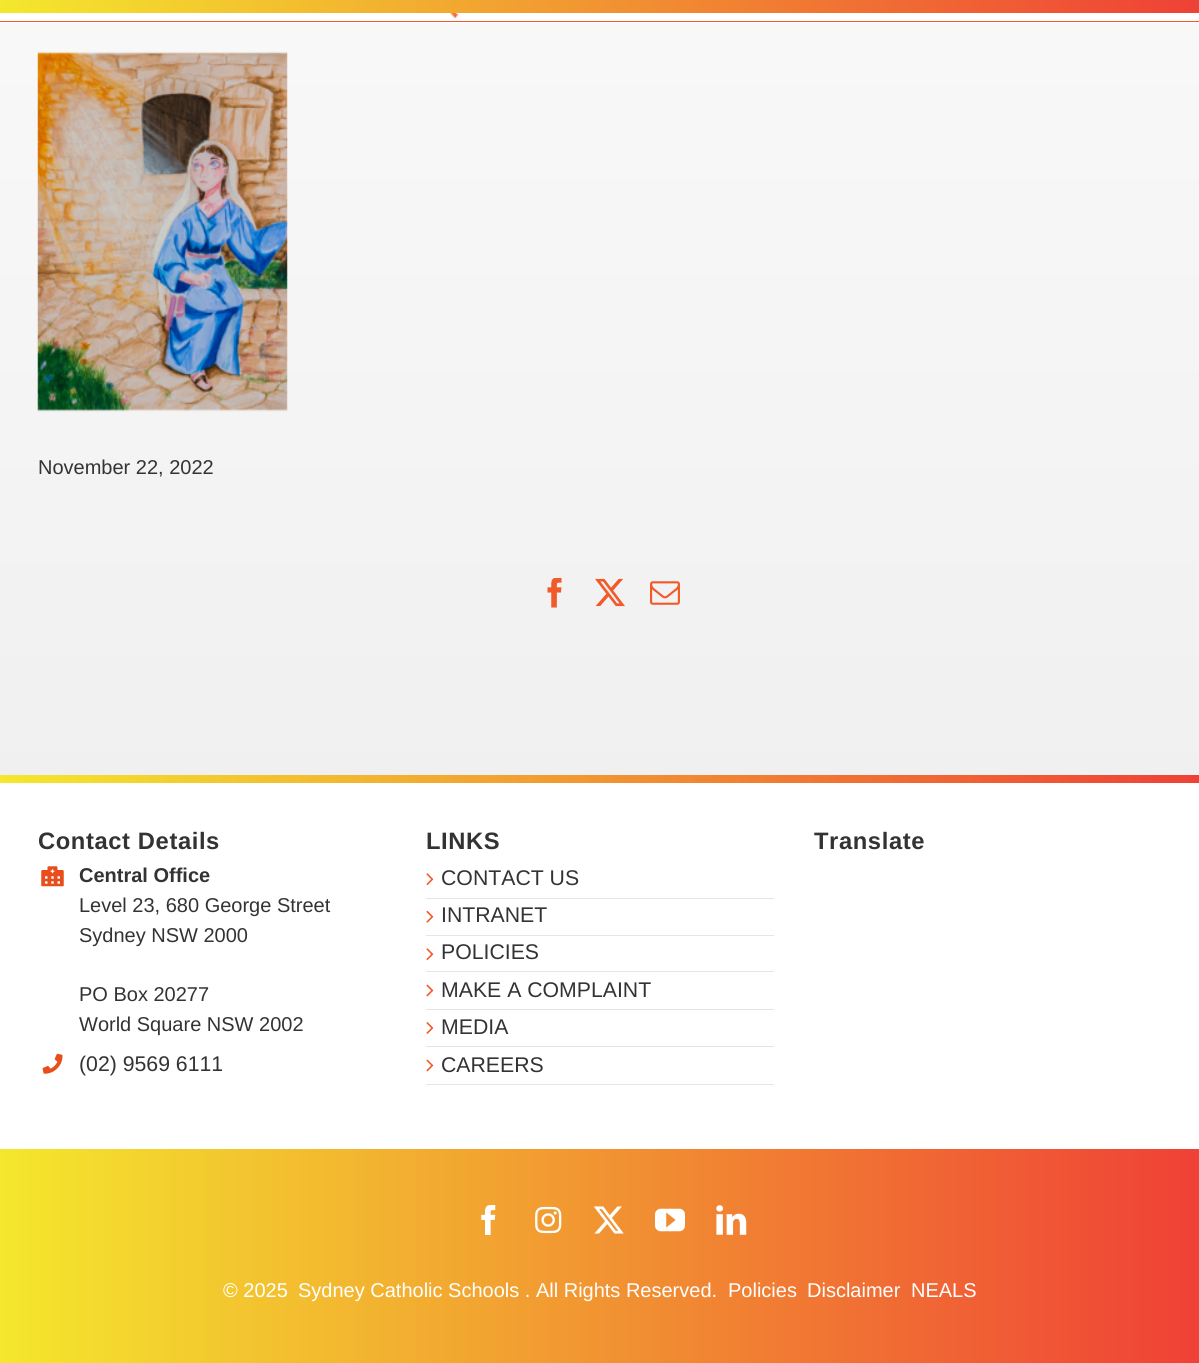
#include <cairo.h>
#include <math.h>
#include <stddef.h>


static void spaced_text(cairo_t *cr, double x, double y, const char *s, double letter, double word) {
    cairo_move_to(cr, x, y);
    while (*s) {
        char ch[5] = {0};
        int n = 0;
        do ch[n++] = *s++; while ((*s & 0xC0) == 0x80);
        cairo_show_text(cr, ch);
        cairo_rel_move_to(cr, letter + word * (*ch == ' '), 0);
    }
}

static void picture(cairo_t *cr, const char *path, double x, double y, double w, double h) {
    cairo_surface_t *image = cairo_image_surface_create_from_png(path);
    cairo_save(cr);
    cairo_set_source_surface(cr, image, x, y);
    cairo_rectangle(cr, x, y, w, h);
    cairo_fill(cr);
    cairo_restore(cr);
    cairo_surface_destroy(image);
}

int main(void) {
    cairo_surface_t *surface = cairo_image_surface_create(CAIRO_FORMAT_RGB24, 1199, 1363);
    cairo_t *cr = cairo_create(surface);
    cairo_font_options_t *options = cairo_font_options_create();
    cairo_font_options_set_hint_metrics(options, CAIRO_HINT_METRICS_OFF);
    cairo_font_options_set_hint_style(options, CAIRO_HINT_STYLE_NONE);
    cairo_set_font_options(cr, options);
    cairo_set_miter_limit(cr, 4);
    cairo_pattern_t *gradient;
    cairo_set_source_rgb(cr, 1, 1, 1);
    cairo_paint(cr);
    gradient = cairo_pattern_create_linear(0, 6.3, 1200, 6.2);
    cairo_pattern_add_color_stop_rgba(gradient, 0, 0.957, 0.906, 0.176, 1);
    cairo_pattern_add_color_stop_rgba(gradient, 1, 0.937, 0.255, 0.212, 1);
    cairo_set_source(cr, gradient);
    cairo_pattern_destroy(gradient);
    cairo_rectangle(cr, 0, 0, 1199, 13);
    cairo_fill(cr);
    gradient = cairo_pattern_create_linear(600, -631, 600, 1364);
    cairo_pattern_add_color_stop_rgba(gradient, 0, 1, 1, 1, 1);
    cairo_pattern_add_color_stop_rgba(gradient, 1, 0.918, 0.918, 0.918, 1);
    cairo_set_source(cr, gradient);
    cairo_pattern_destroy(gradient);
    cairo_rectangle(cr, 0, 23, 1199, 752);
    cairo_fill(cr);
    picture(cr, "img1.png", 450, 13, 9, 5);
    cairo_set_source_rgb(cr, 0.945, 0.345, 0.161);
    cairo_rectangle(cr, 0, 21, 1199, 1);
    cairo_fill(cr);
    picture(cr, "img2.png", 37, 51, 251, 361);
    cairo_select_font_face(cr, "Liberation Sans", CAIRO_FONT_SLANT_NORMAL, CAIRO_FONT_WEIGHT_NORMAL);
    cairo_set_font_size(cr, 20);
    cairo_set_source_rgb(cr, 0.2, 0.2, 0.2);
    cairo_move_to(cr, 38, 474);
    cairo_show_text(cr, "November 22, 2022");
    picture(cr, "img3.png", 547, 578, 15, 30);
    picture(cr, "img4.png", 595, 578, 30, 29);
    picture(cr, "img5.png", 650, 581, 30, 24);
    gradient = cairo_pattern_create_linear(0, 779, 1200, 779);
    cairo_pattern_add_color_stop_rgba(gradient, 0, 0.957, 0.906, 0.176, 1);
    cairo_pattern_add_color_stop_rgba(gradient, 1, 0.937, 0.255, 0.212, 1);
    cairo_set_source(cr, gradient);
    cairo_pattern_destroy(gradient);
    cairo_rectangle(cr, 0, 775, 1199, 8);
    cairo_fill(cr);
    cairo_select_font_face(cr, "Liberation Sans", CAIRO_FONT_SLANT_NORMAL, CAIRO_FONT_WEIGHT_BOLD);
    cairo_set_font_size(cr, 23.75);
    cairo_set_source_rgb(cr, 0.2, 0.2, 0.2);
    spaced_text(cr, 38, 849, "Contact Details", 0.6, 0);
    picture(cr, "img6.png", 41, 866, 23, 21);
    cairo_set_font_size(cr, 20);
    cairo_move_to(cr, 79, 882);
    cairo_show_text(cr, "Central Office");
    cairo_select_font_face(cr, "Liberation Sans", CAIRO_FONT_SLANT_NORMAL, CAIRO_FONT_WEIGHT_NORMAL);
    cairo_move_to(cr, 79, 912);
    cairo_show_text(cr, "Level 23, 680 George Street");
    cairo_move_to(cr, 79, 942);
    cairo_show_text(cr, "Sydney NSW 2000");
    cairo_move_to(cr, 79, 1001);
    cairo_show_text(cr, "PO Box 20277");
    cairo_move_to(cr, 79, 1031);
    cairo_show_text(cr, "World Square NSW 2002");
    picture(cr, "img7.png", 42, 1053, 21, 21);
    cairo_set_font_size(cr, 21.25);
    cairo_move_to(cr, 79, 1071);
    cairo_show_text(cr, "(02) 9569 6111");
    cairo_select_font_face(cr, "Liberation Sans", CAIRO_FONT_SLANT_NORMAL, CAIRO_FONT_WEIGHT_BOLD);
    cairo_set_font_size(cr, 23.75);
    spaced_text(cr, 426, 849, "LINKS", 0.6, 0);
    cairo_set_source_rgb(cr, 0.906, 0.894, 0.886);
    cairo_rectangle(cr, 426, 898, 348, 1);
    cairo_fill(cr);
    picture(cr, "img8.png", 426, 873, 8, 13);
    cairo_select_font_face(cr, "Liberation Sans", CAIRO_FONT_SLANT_NORMAL, CAIRO_FONT_WEIGHT_NORMAL);
    cairo_set_font_size(cr, 21.25);
    cairo_set_source_rgb(cr, 0.2, 0.2, 0.2);
    cairo_move_to(cr, 441, 885);
    cairo_show_text(cr, "CONTACT US");
    cairo_set_source_rgb(cr, 0.906, 0.894, 0.886);
    cairo_rectangle(cr, 426, 935, 348, 1);
    cairo_fill(cr);
    picture(cr, "img9.png", 426, 910, 8, 13);
    cairo_set_source_rgb(cr, 0.2, 0.2, 0.2);
    cairo_move_to(cr, 441, 922);
    cairo_show_text(cr, "INTRANET");
    cairo_set_source_rgb(cr, 0.906, 0.894, 0.886);
    cairo_rectangle(cr, 426, 971, 348, 1);
    cairo_fill(cr);
    picture(cr, "img8.png", 426, 948, 8, 13);
    cairo_set_source_rgb(cr, 0.2, 0.2, 0.2);
    cairo_move_to(cr, 441, 959);
    cairo_show_text(cr, "POLICIES");
    cairo_set_source_rgb(cr, 0.906, 0.894, 0.886);
    cairo_rectangle(cr, 426, 1009, 348, 1);
    cairo_fill(cr);
    picture(cr, "img10.png", 426, 984, 8, 13);
    cairo_set_source_rgb(cr, 0.2, 0.2, 0.2);
    cairo_move_to(cr, 441, 997);
    cairo_show_text(cr, "MAKE A COMPLAINT");
    cairo_set_source_rgb(cr, 0.906, 0.894, 0.886);
    cairo_rectangle(cr, 426, 1046, 348, 1);
    cairo_fill(cr);
    picture(cr, "img11.png", 426, 1022, 8, 12);
    cairo_set_source_rgb(cr, 0.2, 0.2, 0.2);
    cairo_move_to(cr, 441, 1034);
    cairo_show_text(cr, "MEDIA");
    cairo_set_source_rgb(cr, 0.906, 0.894, 0.886);
    cairo_rectangle(cr, 426, 1084, 348, 1);
    cairo_fill(cr);
    picture(cr, "img10.png", 426, 1059, 8, 13);
    cairo_set_source_rgb(cr, 0.2, 0.2, 0.2);
    cairo_move_to(cr, 441, 1072);
    cairo_show_text(cr, "CAREERS");
    cairo_select_font_face(cr, "Liberation Sans", CAIRO_FONT_SLANT_NORMAL, CAIRO_FONT_WEIGHT_BOLD);
    cairo_set_font_size(cr, 23.75);
    spaced_text(cr, 814, 849, "Translate", 0.6, 0);
    gradient = cairo_pattern_create_linear(0, 1256, 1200, 1256);
    cairo_pattern_add_color_stop_rgba(gradient, 0, 0.957, 0.906, 0.176, 1);
    cairo_pattern_add_color_stop_rgba(gradient, 1, 0.937, 0.255, 0.212, 1);
    cairo_set_source(cr, gradient);
    cairo_pattern_destroy(gradient);
    cairo_rectangle(cr, 0, 1149, 1199, 214);
    cairo_fill(cr);
    picture(cr, "img12.png", 481, 1205, 15, 30);
    picture(cr, "img13.png", 535, 1206, 27, 28);
    picture(cr, "img14.png", 593, 1206, 31, 28);
    picture(cr, "img15.png", 655, 1208, 30, 24);
    picture(cr, "img16.png", 716, 1205, 31, 30);
    cairo_select_font_face(cr, "Liberation Sans", CAIRO_FONT_SLANT_NORMAL, CAIRO_FONT_WEIGHT_NORMAL);
    cairo_set_font_size(cr, 20);
    cairo_set_source_rgb(cr, 1, 1, 1);
    cairo_move_to(cr, 223, 1297);
    cairo_show_text(cr, "© 2025");
    cairo_move_to(cr, 298, 1297);
    cairo_show_text(cr, "Sydney Catholic Schools . All Rights Reserved.");
    cairo_move_to(cr, 728, 1297);
    cairo_show_text(cr, "Policies");
    cairo_move_to(cr, 807, 1297);
    cairo_show_text(cr, "Disclaimer");
    cairo_move_to(cr, 911, 1297);
    cairo_show_text(cr, "NEALS");
    cairo_surface_write_to_png(surface, "page.png");
    cairo_font_options_destroy(options);
    cairo_destroy(cr);
    cairo_surface_destroy(surface);
    return 0;
}
